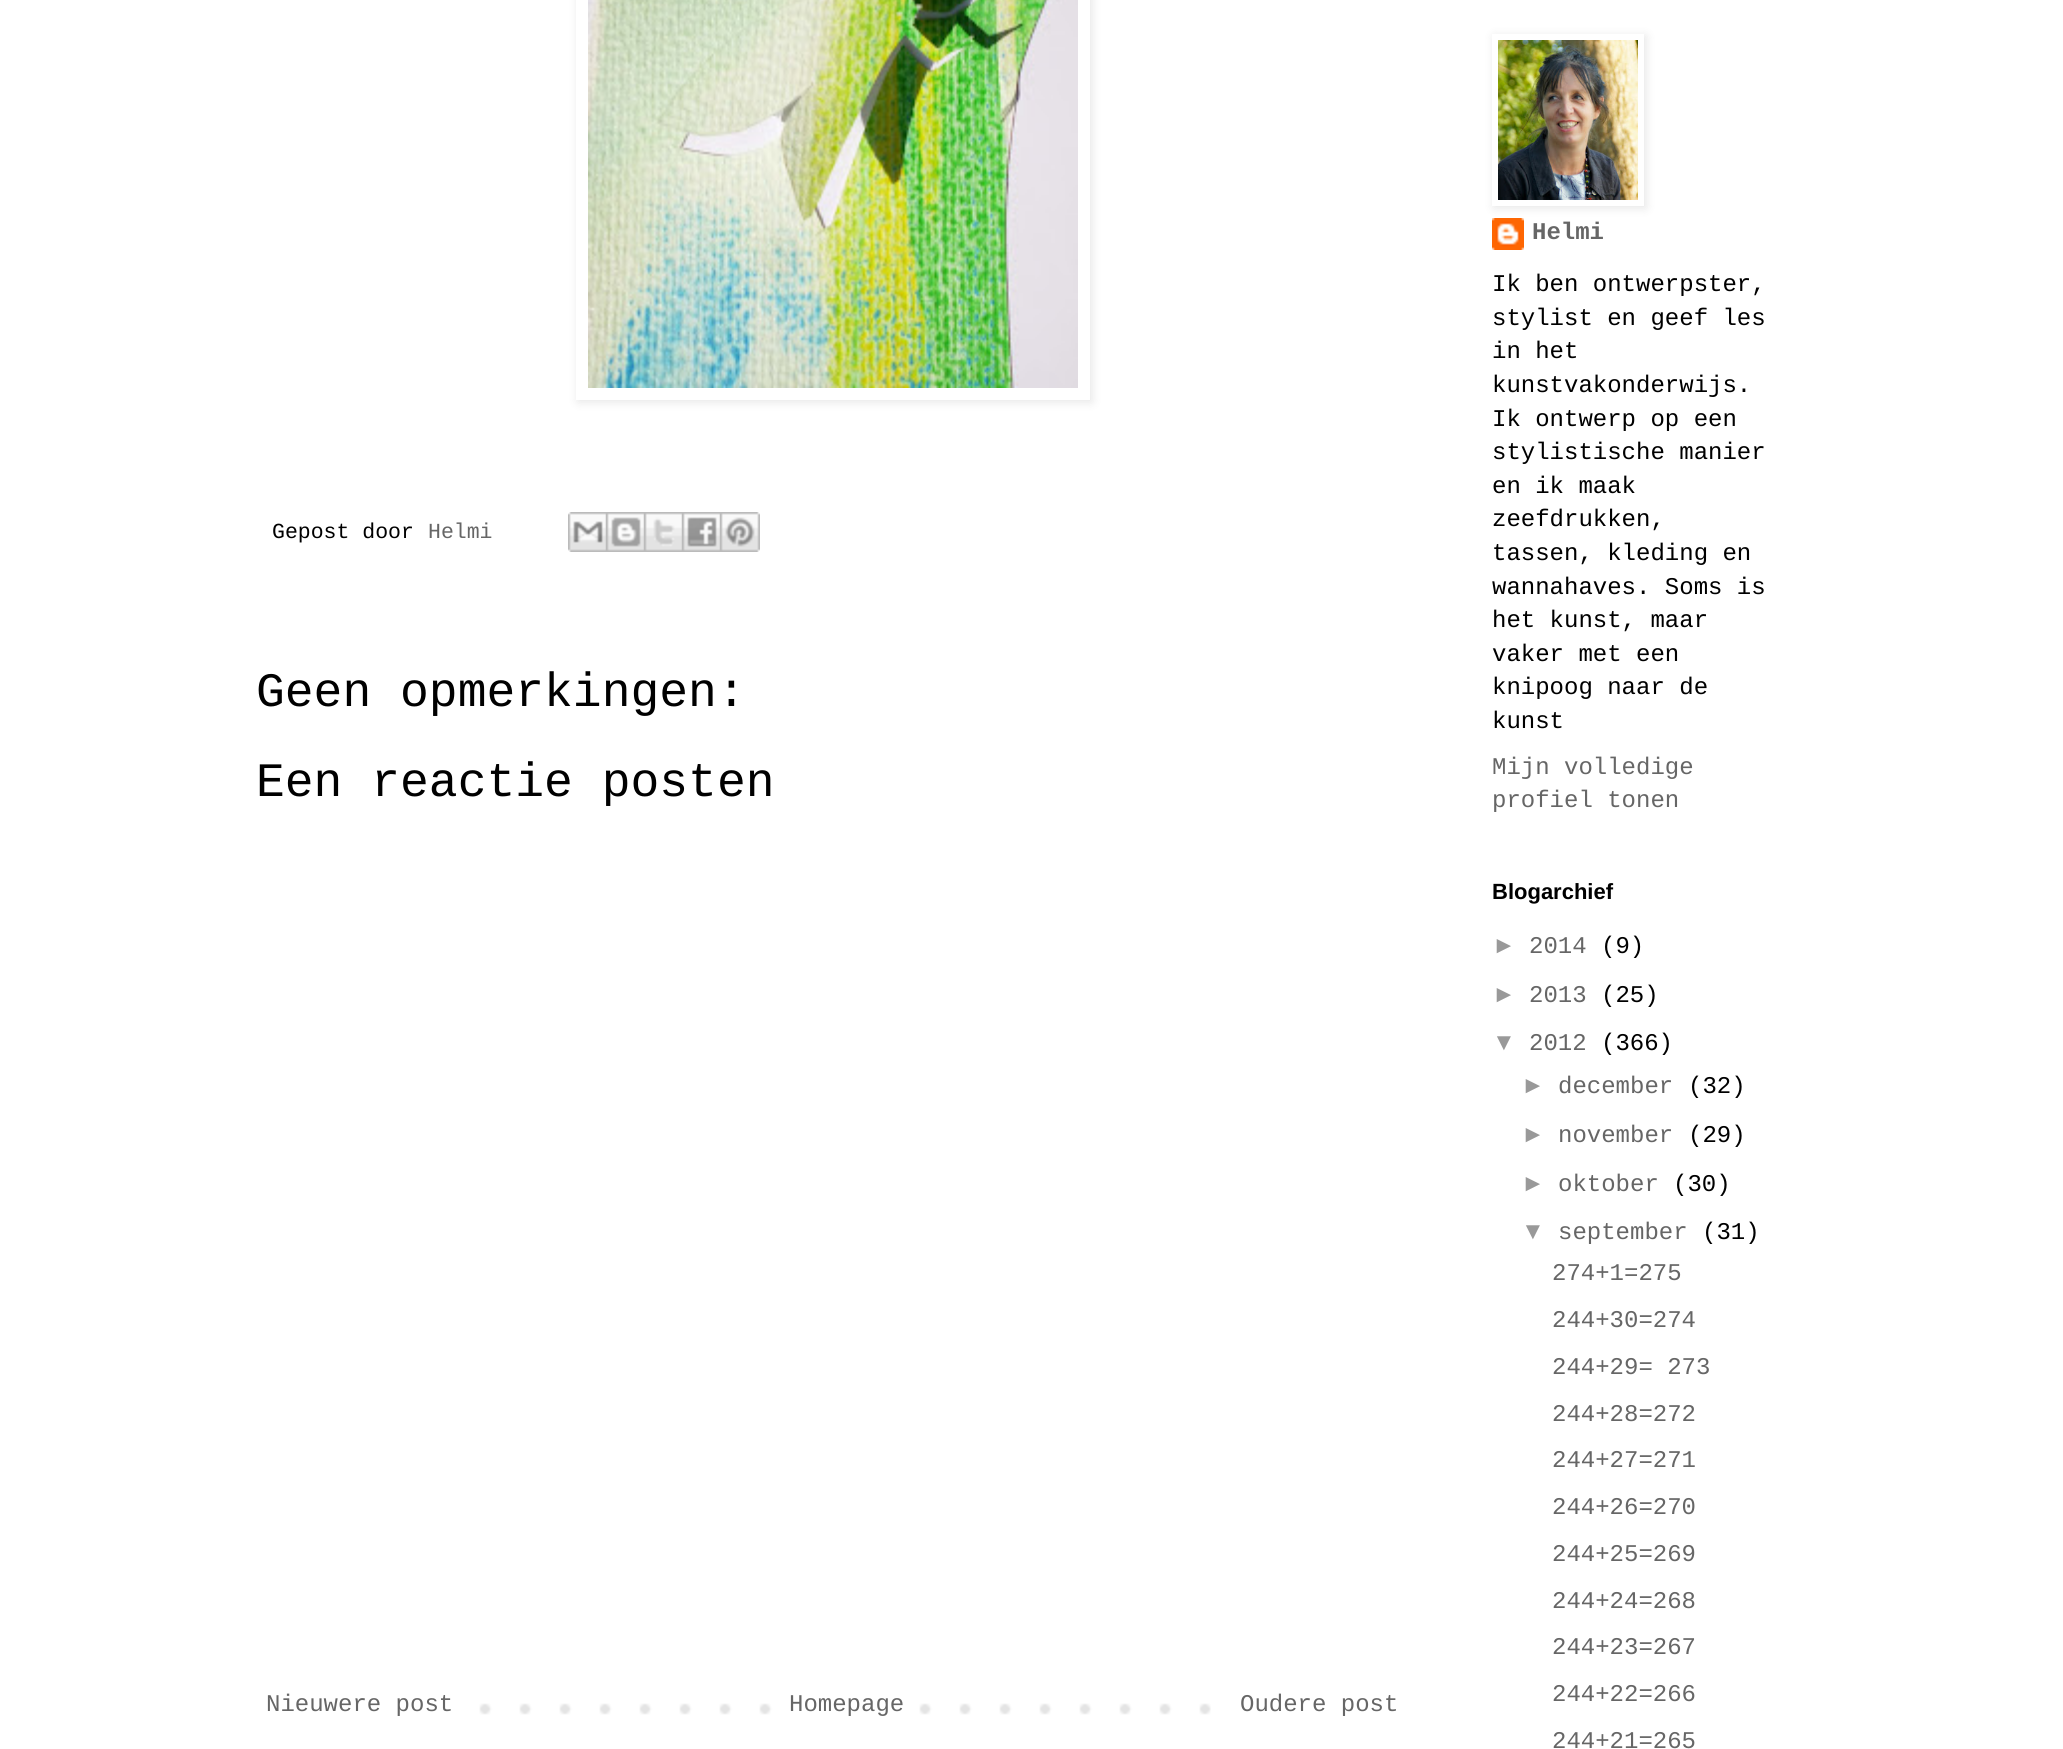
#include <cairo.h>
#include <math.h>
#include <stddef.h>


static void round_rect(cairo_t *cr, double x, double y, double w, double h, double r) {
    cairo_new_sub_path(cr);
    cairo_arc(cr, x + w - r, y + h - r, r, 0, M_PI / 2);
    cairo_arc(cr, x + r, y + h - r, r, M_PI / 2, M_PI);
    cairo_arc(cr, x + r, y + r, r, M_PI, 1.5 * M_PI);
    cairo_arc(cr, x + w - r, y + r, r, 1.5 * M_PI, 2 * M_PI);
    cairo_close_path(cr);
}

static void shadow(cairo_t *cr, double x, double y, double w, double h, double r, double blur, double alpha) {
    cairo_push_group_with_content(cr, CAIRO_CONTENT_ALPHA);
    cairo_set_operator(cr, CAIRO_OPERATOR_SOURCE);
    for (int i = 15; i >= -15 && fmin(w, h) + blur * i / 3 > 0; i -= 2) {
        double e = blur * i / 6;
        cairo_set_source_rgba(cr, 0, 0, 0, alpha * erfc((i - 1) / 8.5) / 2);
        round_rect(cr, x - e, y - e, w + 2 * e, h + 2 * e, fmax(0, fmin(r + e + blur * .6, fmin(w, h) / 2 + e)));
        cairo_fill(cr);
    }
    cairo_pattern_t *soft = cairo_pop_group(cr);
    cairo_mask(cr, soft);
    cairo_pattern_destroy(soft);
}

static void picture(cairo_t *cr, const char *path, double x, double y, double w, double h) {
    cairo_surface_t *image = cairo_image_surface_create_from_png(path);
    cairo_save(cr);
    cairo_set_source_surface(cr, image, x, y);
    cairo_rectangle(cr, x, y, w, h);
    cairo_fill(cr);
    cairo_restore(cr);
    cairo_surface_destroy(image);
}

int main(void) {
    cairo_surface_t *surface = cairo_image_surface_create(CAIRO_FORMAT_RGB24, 2063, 1749);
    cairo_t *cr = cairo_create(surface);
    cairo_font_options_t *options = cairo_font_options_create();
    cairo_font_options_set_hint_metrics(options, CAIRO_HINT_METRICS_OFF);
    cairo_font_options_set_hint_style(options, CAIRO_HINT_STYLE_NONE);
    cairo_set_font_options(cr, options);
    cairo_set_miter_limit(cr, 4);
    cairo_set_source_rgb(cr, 1, 1, 1);
    cairo_paint(cr);
    cairo_save(cr);
    cairo_set_fill_rule(cr, CAIRO_FILL_RULE_EVEN_ODD);
    cairo_new_path(cr);
    cairo_move_to(cr, 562, 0);
    cairo_line_to(cr, 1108, 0);
    cairo_line_to(cr, 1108, 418);
    cairo_line_to(cr, 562, 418);
    cairo_close_path(cr);
    cairo_move_to(cr, 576, -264);
    cairo_line_to(cr, 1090, -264);
    cairo_line_to(cr, 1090, 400);
    cairo_line_to(cr, 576, 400);
    cairo_close_path(cr);
    cairo_clip(cr);
    cairo_set_source_rgb(cr, 0, 0, 0);
    shadow(cr, 578, -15, 514, 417, 0, 5, 0.1);
    cairo_restore(cr);
    picture(cr, "img1.png", 588, 0, 490, 388);
    cairo_select_font_face(cr, "Liberation Mono", CAIRO_FONT_SLANT_NORMAL, CAIRO_FONT_WEIGHT_NORMAL);
    cairo_set_font_size(cr, 21.5);
    cairo_set_source_rgb(cr, 0, 0, 0);
    cairo_move_to(cr, 272, 538);
    cairo_show_text(cr, "Gepost door");
    cairo_set_source_rgb(cr, 0.4, 0.4, 0.4);
    cairo_move_to(cr, 428, 538);
    cairo_show_text(cr, "Helmi");
    picture(cr, "img2.png", 568, 512, 38, 40);
    picture(cr, "img3.png", 606, 512, 38, 40);
    picture(cr, "img4.png", 644, 512, 38, 40);
    picture(cr, "img5.png", 682, 512, 38, 40);
    picture(cr, "img6.png", 720, 512, 40, 40);
    cairo_set_font_size(cr, 48);
    cairo_set_source_rgb(cr, 0, 0, 0);
    cairo_move_to(cr, 256, 706);
    cairo_show_text(cr, "Geen opmerkingen:");
    cairo_move_to(cr, 256, 796);
    cairo_show_text(cr, "Een reactie posten");
    picture(cr, "img7.png", 479, 1703, 732, 12);
    cairo_set_font_size(cr, 24);
    cairo_set_source_rgb(cr, 0.4, 0.4, 0.4);
    cairo_move_to(cr, 266, 1711);
    cairo_show_text(cr, "Nieuwere post");
    cairo_set_source_rgb(cr, 1, 1, 1);
    cairo_rectangle(cr, 799, 1703, 93, 12);
    cairo_fill(cr);
    cairo_set_source_rgb(cr, 0.4, 0.4, 0.4);
    cairo_move_to(cr, 789, 1711);
    cairo_show_text(cr, "Homepage");
    cairo_move_to(cr, 1240, 1711);
    cairo_show_text(cr, "Oudere post");
    picture(cr, "img9.png", 1492, 218, 32, 32);
    cairo_save(cr);
    cairo_set_fill_rule(cr, CAIRO_FILL_RULE_EVEN_ODD);
    cairo_new_path(cr);
    cairo_move_to(cr, 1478, 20);
    cairo_line_to(cr, 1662, 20);
    cairo_line_to(cr, 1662, 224);
    cairo_line_to(cr, 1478, 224);
    cairo_close_path(cr);
    cairo_move_to(cr, 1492, 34);
    cairo_line_to(cr, 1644, 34);
    cairo_line_to(cr, 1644, 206);
    cairo_line_to(cr, 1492, 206);
    cairo_close_path(cr);
    cairo_clip(cr);
    cairo_set_source_rgb(cr, 0, 0, 0);
    shadow(cr, 1494, 36, 152, 172, 0, 5, 0.1);
    cairo_restore(cr);
    picture(cr, "img8.png", 1498, 40, 140, 160);
    cairo_select_font_face(cr, "Liberation Mono", CAIRO_FONT_SLANT_NORMAL, CAIRO_FONT_WEIGHT_BOLD);
    cairo_move_to(cr, 1532, 239);
    cairo_show_text(cr, "Helmi");
    cairo_select_font_face(cr, "Liberation Mono", CAIRO_FONT_SLANT_NORMAL, CAIRO_FONT_WEIGHT_NORMAL);
    cairo_set_source_rgb(cr, 0, 0, 0);
    cairo_move_to(cr, 1492, 291);
    cairo_show_text(cr, "Ik ben ontwerpster,");
    cairo_move_to(cr, 1492, 325);
    cairo_show_text(cr, "stylist en geef les");
    cairo_move_to(cr, 1492, 358);
    cairo_show_text(cr, "in het");
    cairo_move_to(cr, 1492, 392);
    cairo_show_text(cr, "kunstvakonderwijs.");
    cairo_move_to(cr, 1492, 426);
    cairo_show_text(cr, "Ik ontwerp op een");
    cairo_move_to(cr, 1492, 459);
    cairo_show_text(cr, "stylistische manier");
    cairo_move_to(cr, 1492, 493);
    cairo_show_text(cr, "en ik maak");
    cairo_move_to(cr, 1492, 526);
    cairo_show_text(cr, "zeefdrukken,");
    cairo_move_to(cr, 1492, 560);
    cairo_show_text(cr, "tassen, kleding en");
    cairo_move_to(cr, 1492, 594);
    cairo_show_text(cr, "wannahaves. Soms is");
    cairo_move_to(cr, 1492, 627);
    cairo_show_text(cr, "het kunst, maar");
    cairo_move_to(cr, 1492, 661);
    cairo_show_text(cr, "vaker met een");
    cairo_move_to(cr, 1492, 694);
    cairo_show_text(cr, "knipoog naar de");
    cairo_move_to(cr, 1492, 728);
    cairo_show_text(cr, "kunst");
    cairo_set_source_rgb(cr, 0.4, 0.4, 0.4);
    cairo_move_to(cr, 1492, 774);
    cairo_show_text(cr, "Mijn volledige");
    cairo_move_to(cr, 1492, 807);
    cairo_show_text(cr, "profiel tonen");
    cairo_select_font_face(cr, "Liberation Sans", CAIRO_FONT_SLANT_NORMAL, CAIRO_FONT_WEIGHT_BOLD);
    cairo_set_font_size(cr, 22);
    cairo_set_source_rgb(cr, 0, 0, 0);
    cairo_move_to(cr, 1492, 899);
    cairo_show_text(cr, "Blogarchief");
    cairo_select_font_face(cr, "Liberation Sans", CAIRO_FONT_SLANT_NORMAL, CAIRO_FONT_WEIGHT_NORMAL);
    cairo_set_font_size(cr, 24);
    cairo_set_source_rgb(cr, 0.6, 0.6, 0.6);
    cairo_move_to(cr, 1492, 953);
    cairo_show_text(cr, "►");
    cairo_select_font_face(cr, "Liberation Mono", CAIRO_FONT_SLANT_NORMAL, CAIRO_FONT_WEIGHT_NORMAL);
    cairo_set_source_rgb(cr, 0.4, 0.4, 0.4);
    cairo_move_to(cr, 1529, 953);
    cairo_show_text(cr, "2014");
    cairo_set_source_rgb(cr, 0, 0, 0);
    cairo_move_to(cr, 1601, 953);
    cairo_show_text(cr, "(9)");
    cairo_select_font_face(cr, "Liberation Sans", CAIRO_FONT_SLANT_NORMAL, CAIRO_FONT_WEIGHT_NORMAL);
    cairo_set_source_rgb(cr, 0.6, 0.6, 0.6);
    cairo_move_to(cr, 1492, 1002);
    cairo_show_text(cr, "►");
    cairo_select_font_face(cr, "Liberation Mono", CAIRO_FONT_SLANT_NORMAL, CAIRO_FONT_WEIGHT_NORMAL);
    cairo_set_source_rgb(cr, 0.4, 0.4, 0.4);
    cairo_move_to(cr, 1529, 1002);
    cairo_show_text(cr, "2013");
    cairo_set_source_rgb(cr, 0, 0, 0);
    cairo_move_to(cr, 1601, 1002);
    cairo_show_text(cr, "(25)");
    cairo_select_font_face(cr, "Liberation Sans", CAIRO_FONT_SLANT_NORMAL, CAIRO_FONT_WEIGHT_NORMAL);
    cairo_set_source_rgb(cr, 0.6, 0.6, 0.6);
    cairo_move_to(cr, 1492, 1050);
    cairo_show_text(cr, "▼");
    cairo_select_font_face(cr, "Liberation Mono", CAIRO_FONT_SLANT_NORMAL, CAIRO_FONT_WEIGHT_NORMAL);
    cairo_set_source_rgb(cr, 0.4, 0.4, 0.4);
    cairo_move_to(cr, 1529, 1050);
    cairo_show_text(cr, "2012");
    cairo_set_source_rgb(cr, 0, 0, 0);
    cairo_move_to(cr, 1601, 1050);
    cairo_show_text(cr, "(366)");
    cairo_select_font_face(cr, "Liberation Sans", CAIRO_FONT_SLANT_NORMAL, CAIRO_FONT_WEIGHT_NORMAL);
    cairo_set_source_rgb(cr, 0.6, 0.6, 0.6);
    cairo_move_to(cr, 1521, 1093);
    cairo_show_text(cr, "►");
    cairo_select_font_face(cr, "Liberation Mono", CAIRO_FONT_SLANT_NORMAL, CAIRO_FONT_WEIGHT_NORMAL);
    cairo_set_source_rgb(cr, 0.4, 0.4, 0.4);
    cairo_move_to(cr, 1558, 1093);
    cairo_show_text(cr, "december");
    cairo_set_source_rgb(cr, 0, 0, 0);
    cairo_move_to(cr, 1688, 1093);
    cairo_show_text(cr, "(32)");
    cairo_select_font_face(cr, "Liberation Sans", CAIRO_FONT_SLANT_NORMAL, CAIRO_FONT_WEIGHT_NORMAL);
    cairo_set_source_rgb(cr, 0.6, 0.6, 0.6);
    cairo_move_to(cr, 1521, 1142);
    cairo_show_text(cr, "►");
    cairo_select_font_face(cr, "Liberation Mono", CAIRO_FONT_SLANT_NORMAL, CAIRO_FONT_WEIGHT_NORMAL);
    cairo_set_source_rgb(cr, 0.4, 0.4, 0.4);
    cairo_move_to(cr, 1558, 1142);
    cairo_show_text(cr, "november");
    cairo_set_source_rgb(cr, 0, 0, 0);
    cairo_move_to(cr, 1688, 1142);
    cairo_show_text(cr, "(29)");
    cairo_select_font_face(cr, "Liberation Sans", CAIRO_FONT_SLANT_NORMAL, CAIRO_FONT_WEIGHT_NORMAL);
    cairo_set_source_rgb(cr, 0.6, 0.6, 0.6);
    cairo_move_to(cr, 1521, 1191);
    cairo_show_text(cr, "►");
    cairo_select_font_face(cr, "Liberation Mono", CAIRO_FONT_SLANT_NORMAL, CAIRO_FONT_WEIGHT_NORMAL);
    cairo_set_source_rgb(cr, 0.4, 0.4, 0.4);
    cairo_move_to(cr, 1558, 1191);
    cairo_show_text(cr, "oktober");
    cairo_set_source_rgb(cr, 0, 0, 0);
    cairo_move_to(cr, 1673, 1191);
    cairo_show_text(cr, "(30)");
    cairo_select_font_face(cr, "Liberation Sans", CAIRO_FONT_SLANT_NORMAL, CAIRO_FONT_WEIGHT_NORMAL);
    cairo_set_source_rgb(cr, 0.6, 0.6, 0.6);
    cairo_move_to(cr, 1521, 1239);
    cairo_show_text(cr, "▼");
    cairo_select_font_face(cr, "Liberation Mono", CAIRO_FONT_SLANT_NORMAL, CAIRO_FONT_WEIGHT_NORMAL);
    cairo_set_source_rgb(cr, 0.4, 0.4, 0.4);
    cairo_move_to(cr, 1558, 1239);
    cairo_show_text(cr, "september");
    cairo_set_source_rgb(cr, 0, 0, 0);
    cairo_move_to(cr, 1702, 1239);
    cairo_show_text(cr, "(31)");
    cairo_set_source_rgb(cr, 0.4, 0.4, 0.4);
    cairo_move_to(cr, 1552, 1280);
    cairo_show_text(cr, "274+1=275");
    cairo_move_to(cr, 1552, 1327);
    cairo_show_text(cr, "244+30=274");
    cairo_move_to(cr, 1552, 1374);
    cairo_show_text(cr, "244+29= 273");
    cairo_move_to(cr, 1552, 1421);
    cairo_show_text(cr, "244+28=272");
    cairo_move_to(cr, 1552, 1467);
    cairo_show_text(cr, "244+27=271");
    cairo_move_to(cr, 1552, 1514);
    cairo_show_text(cr, "244+26=270");
    cairo_move_to(cr, 1552, 1561);
    cairo_show_text(cr, "244+25=269");
    cairo_move_to(cr, 1552, 1608);
    cairo_show_text(cr, "244+24=268");
    cairo_move_to(cr, 1552, 1654);
    cairo_show_text(cr, "244+23=267");
    cairo_move_to(cr, 1552, 1701);
    cairo_show_text(cr, "244+22=266");
    cairo_move_to(cr, 1552, 1748);
    cairo_show_text(cr, "244+21=265");
    cairo_surface_write_to_png(surface, "page.png");
    cairo_font_options_destroy(options);
    cairo_destroy(cr);
    cairo_surface_destroy(surface);
    return 0;
}
